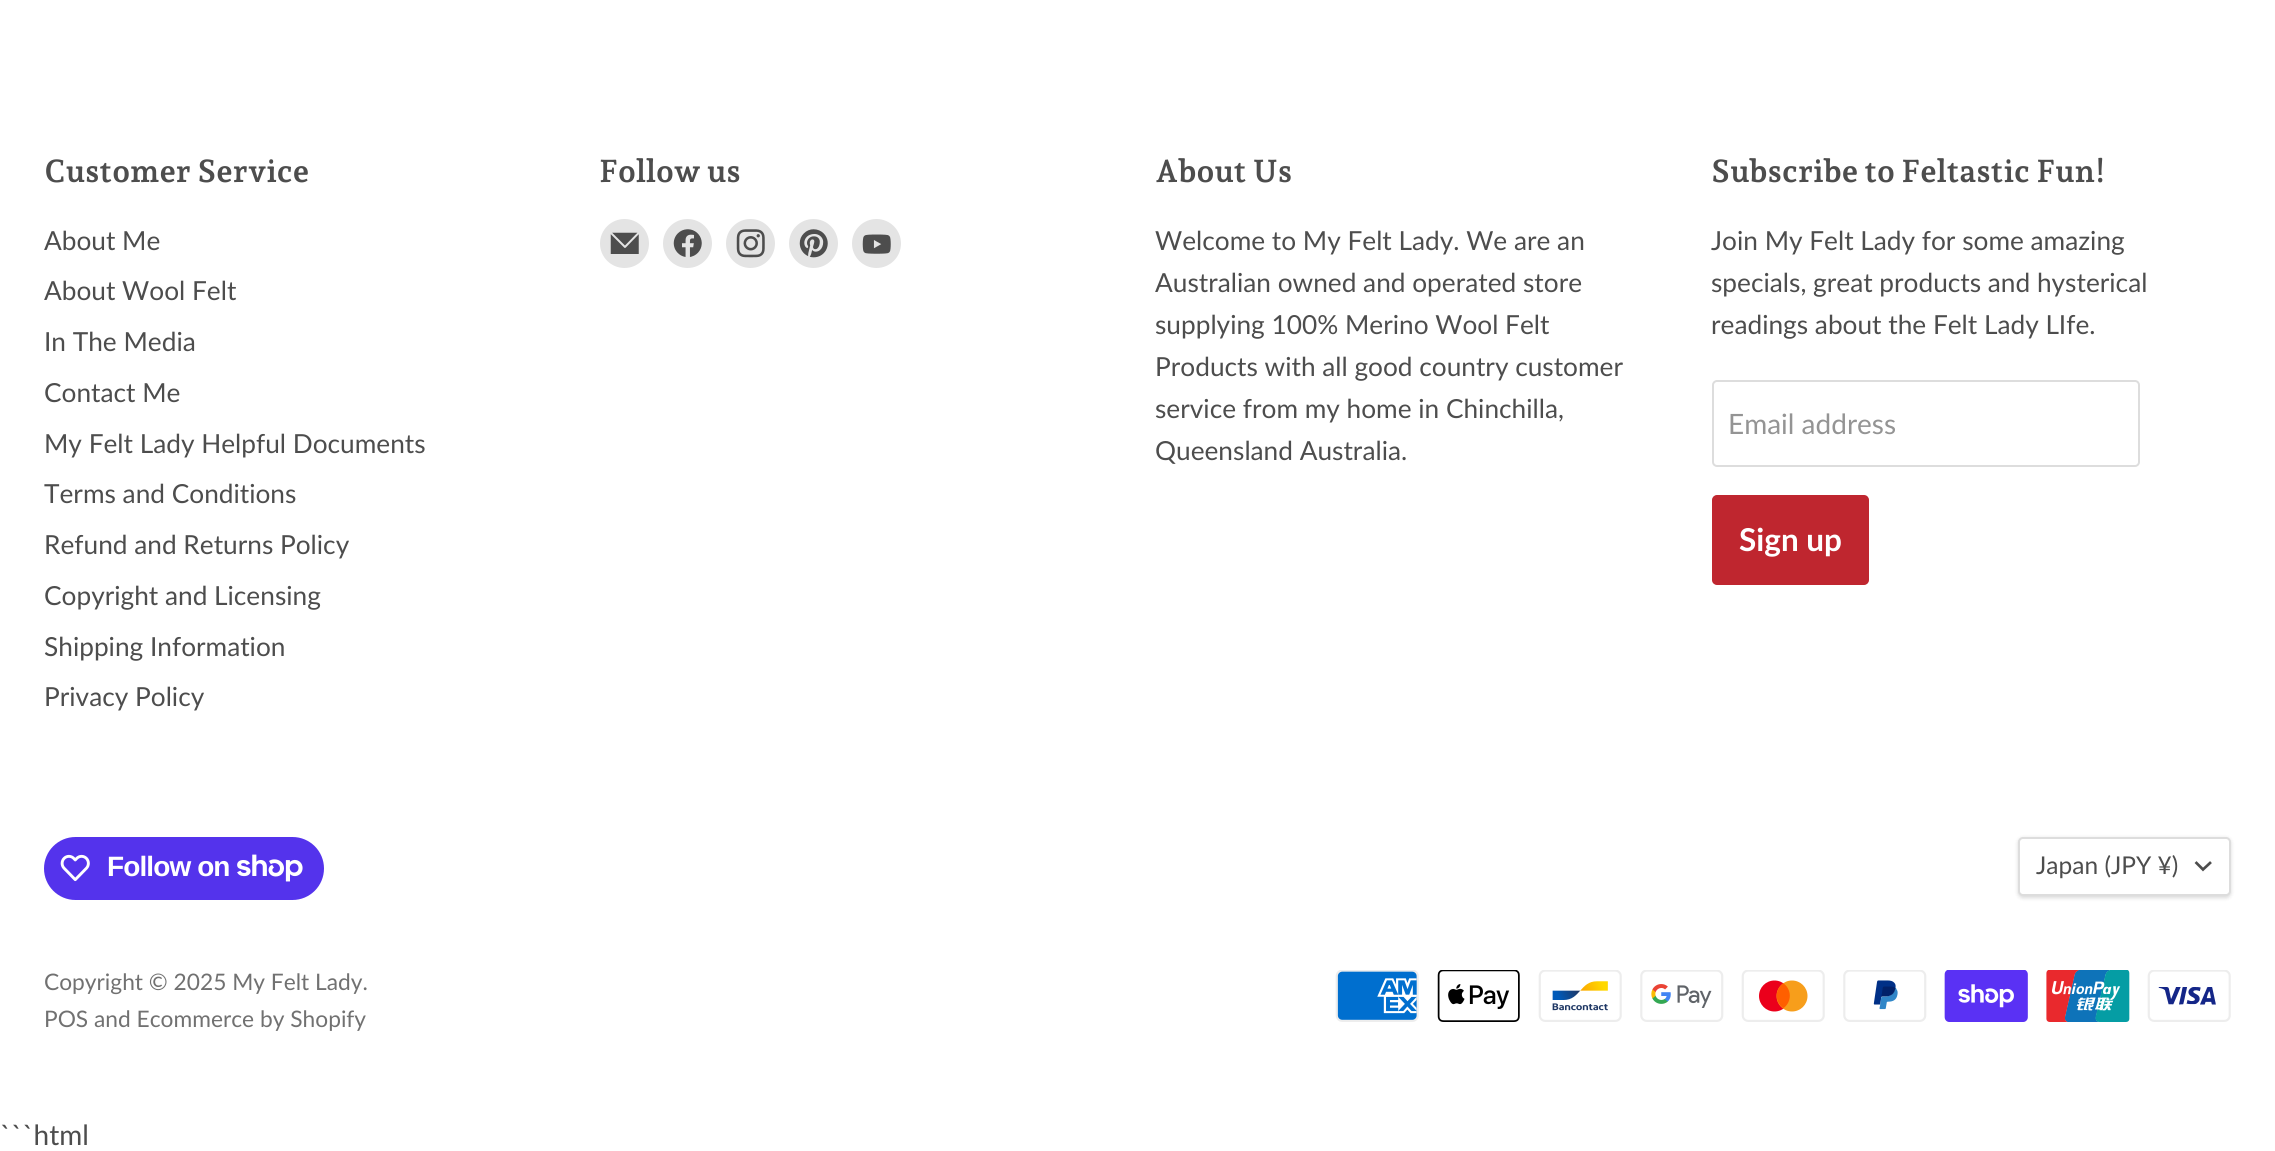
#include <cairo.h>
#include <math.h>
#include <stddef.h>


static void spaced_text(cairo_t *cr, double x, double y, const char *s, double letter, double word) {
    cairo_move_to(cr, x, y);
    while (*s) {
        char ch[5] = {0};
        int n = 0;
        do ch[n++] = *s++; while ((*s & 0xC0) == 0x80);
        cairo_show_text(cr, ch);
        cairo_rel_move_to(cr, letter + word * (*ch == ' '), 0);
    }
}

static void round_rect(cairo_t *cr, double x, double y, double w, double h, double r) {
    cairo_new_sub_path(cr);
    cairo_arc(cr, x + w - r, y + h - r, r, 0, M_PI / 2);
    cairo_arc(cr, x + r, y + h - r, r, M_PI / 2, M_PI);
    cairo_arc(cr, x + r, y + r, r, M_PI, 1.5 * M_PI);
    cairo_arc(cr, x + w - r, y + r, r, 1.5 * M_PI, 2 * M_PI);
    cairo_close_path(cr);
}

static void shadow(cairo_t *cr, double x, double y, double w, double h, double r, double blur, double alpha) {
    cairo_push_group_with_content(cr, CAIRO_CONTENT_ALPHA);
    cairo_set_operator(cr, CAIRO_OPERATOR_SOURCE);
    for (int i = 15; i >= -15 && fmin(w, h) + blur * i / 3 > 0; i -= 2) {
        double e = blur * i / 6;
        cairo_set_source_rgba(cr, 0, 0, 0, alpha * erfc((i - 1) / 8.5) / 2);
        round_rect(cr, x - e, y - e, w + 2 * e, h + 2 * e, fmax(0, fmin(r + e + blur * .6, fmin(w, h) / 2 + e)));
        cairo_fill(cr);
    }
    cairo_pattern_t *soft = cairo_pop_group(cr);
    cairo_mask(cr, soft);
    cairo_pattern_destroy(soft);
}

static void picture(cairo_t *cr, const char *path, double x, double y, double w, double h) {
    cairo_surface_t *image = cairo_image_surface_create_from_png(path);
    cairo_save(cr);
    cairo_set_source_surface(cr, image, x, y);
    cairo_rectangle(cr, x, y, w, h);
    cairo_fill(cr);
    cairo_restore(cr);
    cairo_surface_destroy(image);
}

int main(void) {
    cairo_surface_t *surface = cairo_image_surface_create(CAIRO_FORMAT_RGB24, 2275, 1151);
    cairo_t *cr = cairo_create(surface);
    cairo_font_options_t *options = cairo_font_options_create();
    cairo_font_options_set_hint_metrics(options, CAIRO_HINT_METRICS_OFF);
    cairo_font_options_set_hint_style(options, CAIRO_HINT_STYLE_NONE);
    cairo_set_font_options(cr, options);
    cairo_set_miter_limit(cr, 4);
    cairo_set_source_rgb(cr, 1, 1, 1);
    cairo_paint(cr);
    cairo_select_font_face(cr, "Andada Pro", CAIRO_FONT_SLANT_NORMAL, CAIRO_FONT_WEIGHT_BOLD);
    cairo_set_font_size(cr, 31.5);
    cairo_set_source_rgb(cr, 0.302, 0.302, 0.302);
    cairo_move_to(cr, 44, 182);
    cairo_show_text(cr, "Customer Service");
    cairo_select_font_face(cr, "Lato", CAIRO_FONT_SLANT_NORMAL, CAIRO_FONT_WEIGHT_NORMAL);
    cairo_set_font_size(cr, 26.25);
    cairo_move_to(cr, 44, 250);
    cairo_show_text(cr, "About Me");
    cairo_move_to(cr, 44, 300);
    cairo_show_text(cr, "About Wool Felt");
    cairo_move_to(cr, 44, 351);
    cairo_show_text(cr, "In The Media");
    cairo_move_to(cr, 44, 402);
    cairo_show_text(cr, "Contact Me");
    cairo_move_to(cr, 44, 453);
    cairo_show_text(cr, "My Felt Lady Helpful Documents");
    cairo_move_to(cr, 44, 503);
    cairo_show_text(cr, "Terms and Conditions");
    cairo_move_to(cr, 44, 554);
    cairo_show_text(cr, "Refund and Returns Policy");
    cairo_move_to(cr, 44, 605);
    cairo_show_text(cr, "Copyright and Licensing");
    cairo_move_to(cr, 44, 656);
    cairo_show_text(cr, "Shipping Information");
    cairo_move_to(cr, 44, 706);
    cairo_show_text(cr, "Privacy Policy");
    cairo_select_font_face(cr, "Andada Pro", CAIRO_FONT_SLANT_NORMAL, CAIRO_FONT_WEIGHT_BOLD);
    cairo_set_font_size(cr, 31.5);
    cairo_move_to(cr, 599, 182);
    cairo_show_text(cr, "Follow us");
    cairo_set_source_rgb(cr, 0.894, 0.894, 0.894);
    cairo_new_path(cr);
    cairo_arc(cr, 624.5, 243.5, 24.5, 0, 2 * M_PI);
    cairo_fill(cr);
    picture(cr, "img1.png", 610, 232, 29, 22);
    cairo_arc(cr, 687.5, 243.5, 24.5, 0, 2 * M_PI);
    cairo_fill(cr);
    picture(cr, "img2.png", 673, 229, 29, 28);
    cairo_arc(cr, 750.5, 243.5, 24.5, 0, 2 * M_PI);
    cairo_fill(cr);
    picture(cr, "img3.png", 736, 229, 29, 29);
    cairo_arc(cr, 813.5, 243.5, 24.5, 0, 2 * M_PI);
    cairo_fill(cr);
    picture(cr, "img4.png", 799, 229, 29, 29);
    cairo_arc(cr, 876.5, 243.5, 24.5, 0, 2 * M_PI);
    cairo_fill(cr);
    picture(cr, "img5.png", 862, 234, 29, 20);
    cairo_set_source_rgb(cr, 0.302, 0.302, 0.302);
    cairo_move_to(cr, 1155, 182);
    cairo_show_text(cr, "About Us");
    cairo_select_font_face(cr, "Lato", CAIRO_FONT_SLANT_NORMAL, CAIRO_FONT_WEIGHT_NORMAL);
    cairo_set_font_size(cr, 26.25);
    cairo_move_to(cr, 1155, 250);
    cairo_show_text(cr, "Welcome to My Felt Lady. We are an");
    cairo_move_to(cr, 1155, 292);
    cairo_show_text(cr, "Australian owned and operated store");
    cairo_move_to(cr, 1155, 334);
    cairo_show_text(cr, "supplying 100% Merino Wool Felt");
    cairo_move_to(cr, 1155, 376);
    cairo_show_text(cr, "Products with all good country customer");
    cairo_move_to(cr, 1155, 418);
    cairo_show_text(cr, "service from my home in Chinchilla,");
    cairo_move_to(cr, 1155, 460);
    cairo_show_text(cr, "Queensland Australia.");
    cairo_select_font_face(cr, "Andada Pro", CAIRO_FONT_SLANT_NORMAL, CAIRO_FONT_WEIGHT_BOLD);
    cairo_set_font_size(cr, 31.5);
    cairo_move_to(cr, 1711, 182);
    cairo_show_text(cr, "Subscribe to Feltastic Fun!");
    cairo_select_font_face(cr, "Lato", CAIRO_FONT_SLANT_NORMAL, CAIRO_FONT_WEIGHT_NORMAL);
    cairo_set_font_size(cr, 26.25);
    cairo_move_to(cr, 1711, 250);
    cairo_show_text(cr, "Join My Felt Lady for some amazing");
    cairo_move_to(cr, 1711, 292);
    cairo_show_text(cr, "specials, great products and hysterical");
    cairo_move_to(cr, 1711, 334);
    cairo_show_text(cr, "readings about the Felt Lady LIfe.");
    round_rect(cr, 1713, 381, 426, 85, 4);
    cairo_set_source_rgb(cr, 0.867, 0.867, 0.867);
    cairo_stroke(cr);
    cairo_set_font_size(cr, 28);
    cairo_set_source_rgb(cr, 0.58, 0.58, 0.58);
    cairo_move_to(cr, 1728, 434);
    cairo_show_text(cr, "Email address");
    cairo_set_source_rgb(cr, 0.749, 0.149, 0.184);
    round_rect(cr, 1713, 496, 155, 88, 4);
    cairo_fill_preserve(cr);
    cairo_stroke(cr);
    cairo_select_font_face(cr, "Lato", CAIRO_FONT_SLANT_NORMAL, CAIRO_FONT_WEIGHT_BOLD);
    cairo_set_font_size(cr, 31.5);
    cairo_set_source_rgb(cr, 1, 1, 1);
    cairo_move_to(cr, 1739, 551);
    cairo_show_text(cr, "Sign up");
    cairo_set_source_rgb(cr, 0.329, 0.2, 0.922);
    round_rect(cr, 44, 837, 280, 63, 31.5);
    cairo_fill(cr);
    picture(cr, "img6.png", 60, 854, 30, 28);
    cairo_select_font_face(cr, "Liberation Sans", CAIRO_FONT_SLANT_NORMAL, CAIRO_FONT_WEIGHT_BOLD);
    cairo_set_font_size(cr, 28);
    cairo_set_source_rgb(cr, 1, 1, 1);
    spaced_text(cr, 107, 876, "Follow on", -0.9, 0);
    picture(cr, "img7.png", 237, 854, 66, 28);
    cairo_set_source_rgb(cr, 0, 0, 0);
    shadow(cr, 2018, 838, 213, 60, 5, 2, 0.15);
    cairo_set_source_rgb(cr, 1, 1, 1);
    round_rect(cr, 2019, 838, 211, 57, 4);
    cairo_fill_preserve(cr);
    cairo_set_source_rgb(cr, 0.867, 0.867, 0.867);
    cairo_stroke(cr);
    cairo_select_font_face(cr, "Lato", CAIRO_FONT_SLANT_NORMAL, CAIRO_FONT_WEIGHT_NORMAL);
    cairo_set_font_size(cr, 24.5);
    cairo_set_source_rgb(cr, 0.302, 0.302, 0.302);
    cairo_move_to(cr, 2036, 874);
    cairo_show_text(cr, "Japan (JPY ¥)");
    cairo_new_path(cr);
    cairo_move_to(cr, 2203, 869.5);
    cairo_line_to(cr, 2210, 863);
    cairo_move_to(cr, 2203, 869.5);
    cairo_line_to(cr, 2196.5, 863);
    cairo_set_line_width(cr, 2.7);
    cairo_set_line_cap(cr, CAIRO_LINE_CAP_SQUARE);
    cairo_stroke(cr);
    cairo_set_font_size(cr, 22.75);
    cairo_set_source_rgb(cr, 0.443, 0.443, 0.443);
    cairo_move_to(cr, 44, 990);
    cairo_show_text(cr, "Copyright © 2025 My Felt Lady.");
    cairo_move_to(cr, 44, 1027);
    cairo_show_text(cr, "POS and Ecommerce by Shopify");
    picture(cr, "img8.png", 1335, 970, 84, 52);
    picture(cr, "img9.png", 1437, 970, 83, 52);
    picture(cr, "img10.png", 1538, 970, 84, 52);
    picture(cr, "img11.png", 1640, 970, 84, 52);
    picture(cr, "img12.png", 1741, 970, 84, 52);
    picture(cr, "img13.png", 1843, 970, 84, 52);
    picture(cr, "img14.png", 1944, 970, 84, 52);
    picture(cr, "img15.png", 2046, 970, 84, 52);
    picture(cr, "img16.png", 2147, 970, 84, 52);
    cairo_set_font_size(cr, 28);
    cairo_set_source_rgb(cr, 0.302, 0.302, 0.302);
    cairo_move_to(cr, 0, 1145);
    cairo_show_text(cr, "```html");
    cairo_surface_write_to_png(surface, "page.png");
    cairo_font_options_destroy(options);
    cairo_destroy(cr);
    cairo_surface_destroy(surface);
    return 0;
}
